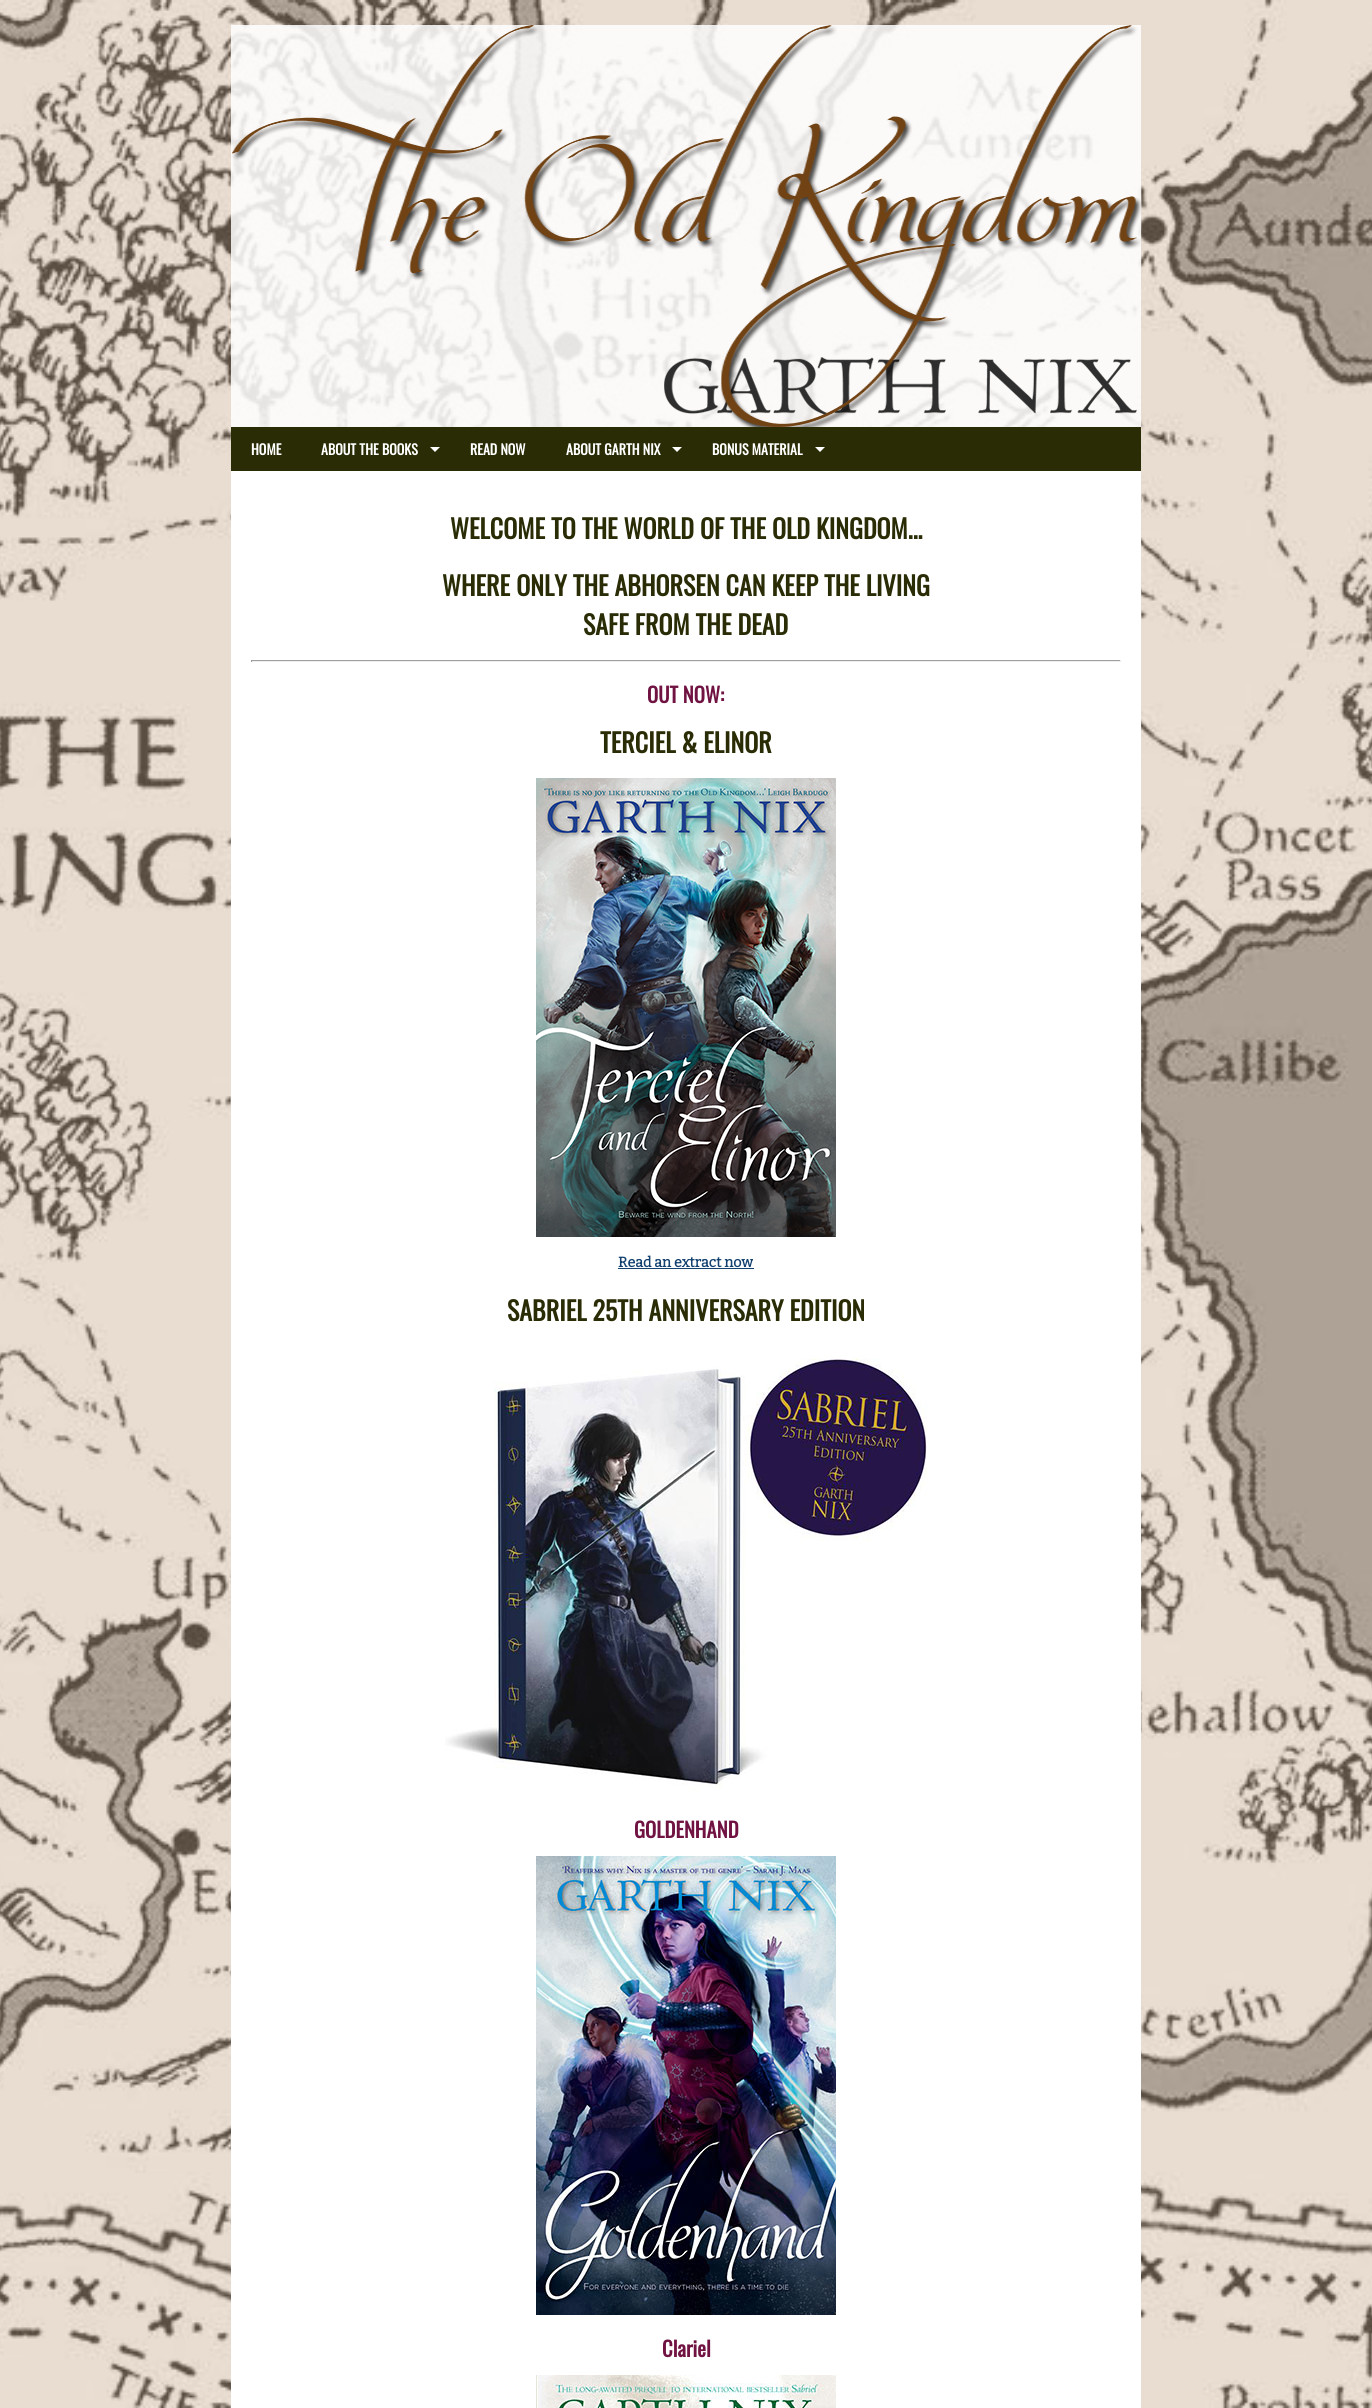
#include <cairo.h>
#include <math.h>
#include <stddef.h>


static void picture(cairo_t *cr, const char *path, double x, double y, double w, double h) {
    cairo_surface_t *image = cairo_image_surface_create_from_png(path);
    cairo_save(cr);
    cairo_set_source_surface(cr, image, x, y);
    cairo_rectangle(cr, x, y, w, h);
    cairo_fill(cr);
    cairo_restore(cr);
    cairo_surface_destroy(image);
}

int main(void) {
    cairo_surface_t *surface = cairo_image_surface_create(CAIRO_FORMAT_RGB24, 1372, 2408);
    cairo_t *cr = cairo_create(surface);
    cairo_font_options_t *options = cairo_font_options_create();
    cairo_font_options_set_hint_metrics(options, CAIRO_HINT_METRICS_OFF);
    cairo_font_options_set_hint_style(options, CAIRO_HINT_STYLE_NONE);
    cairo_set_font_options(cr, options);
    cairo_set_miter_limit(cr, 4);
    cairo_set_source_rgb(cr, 1, 1, 1);
    cairo_paint(cr);
    picture(cr, "img1.png", 0, 0, 1372, 2408);
    picture(cr, "img2.png", 231, 25, 910, 402);
    cairo_set_source_rgb(cr, 0.165, 0.173, 0.02);
    cairo_rectangle(cr, 231, 427, 910, 44);
    cairo_fill(cr);
    cairo_select_font_face(cr, "Oswald", CAIRO_FONT_SLANT_NORMAL, CAIRO_FONT_WEIGHT_BOLD);
    cairo_set_font_size(cr, 14);
    cairo_set_source_rgb(cr, 1, 1, 1);
    cairo_move_to(cr, 251, 455);
    cairo_show_text(cr, "HOME");
    cairo_move_to(cr, 321, 455);
    cairo_show_text(cr, "ABOUT THE BOOKS");
    cairo_new_path(cr);
    cairo_move_to(cr, 430, 447);
    cairo_line_to(cr, 440, 447);
    cairo_line_to(cr, 435, 452);
    cairo_close_path(cr);
    cairo_fill(cr);
    cairo_move_to(cr, 470, 455);
    cairo_show_text(cr, "READ NOW");
    cairo_move_to(cr, 566, 455);
    cairo_show_text(cr, "ABOUT GARTH NIX");
    cairo_new_path(cr);
    cairo_move_to(cr, 672, 447);
    cairo_line_to(cr, 682, 447);
    cairo_line_to(cr, 677, 452);
    cairo_close_path(cr);
    cairo_fill(cr);
    cairo_move_to(cr, 712, 455);
    cairo_show_text(cr, "BONUS MATERIAL");
    cairo_new_path(cr);
    cairo_move_to(cr, 815, 447);
    cairo_line_to(cr, 825, 447);
    cairo_line_to(cr, 820, 452);
    cairo_close_path(cr);
    cairo_fill(cr);
    cairo_rectangle(cr, 231, 471, 910, 1937);
    cairo_fill(cr);
    cairo_set_font_size(cr, 26);
    cairo_set_source_rgb(cr, 0.165, 0.173, 0.02);
    cairo_move_to(cr, 450, 539);
    cairo_show_text(cr, "WELCOME TO THE WORLD OF THE OLD KINGDOM...");
    cairo_move_to(cr, 442, 596);
    cairo_show_text(cr, "WHERE ONLY THE ABHORSEN CAN KEEP THE LIVING");
    cairo_move_to(cr, 583, 635);
    cairo_show_text(cr, "SAFE FROM THE DEAD");
    cairo_set_source_rgb(cr, 0.624, 0.624, 0.624);
    cairo_rectangle(cr, 251, 660, 870, 1);
    cairo_fill(cr);
    cairo_set_source_rgb(cr, 0.933, 0.933, 0.933);
    cairo_rectangle(cr, 1120, 660, 1, 2);
    cairo_fill(cr);
    cairo_rectangle(cr, 251, 661, 870, 1);
    cairo_fill(cr);
    cairo_set_source_rgb(cr, 0.624, 0.624, 0.624);
    cairo_rectangle(cr, 251, 660, 1, 2);
    cairo_fill(cr);
    cairo_set_font_size(cr, 20.75);
    cairo_set_source_rgb(cr, 0.439, 0.078, 0.259);
    cairo_move_to(cr, 647, 703);
    cairo_show_text(cr, "OUT NOW:");
    cairo_set_font_size(cr, 26);
    cairo_set_source_rgb(cr, 0.165, 0.173, 0.02);
    cairo_move_to(cr, 600, 753);
    cairo_show_text(cr, "TERCIEL & ELINOR");
    picture(cr, "img3.png", 536, 778, 300, 459);
    cairo_select_font_face(cr, "Bitter", CAIRO_FONT_SLANT_NORMAL, CAIRO_FONT_WEIGHT_BOLD);
    cairo_set_font_size(cr, 14.25);
    cairo_set_source_rgb(cr, 0.078, 0.259, 0.439);
    cairo_move_to(cr, 618, 1267);
    cairo_show_text(cr, "Read an extract now");
    cairo_rectangle(cr, 618, 1268, 136, 1);
    cairo_fill(cr);
    cairo_select_font_face(cr, "Oswald", CAIRO_FONT_SLANT_NORMAL, CAIRO_FONT_WEIGHT_BOLD);
    cairo_set_font_size(cr, 26);
    cairo_set_source_rgb(cr, 0.165, 0.173, 0.02);
    cairo_move_to(cr, 507, 1321);
    cairo_show_text(cr, "SABRIEL 25TH ANNIVERSARY EDITION");
    picture(cr, "img4.png", 445, 1355, 482, 436);
    cairo_set_font_size(cr, 20.75);
    cairo_set_source_rgb(cr, 0.439, 0.078, 0.259);
    cairo_move_to(cr, 634, 1838);
    cairo_show_text(cr, "GOLDENHAND");
    picture(cr, "img5.png", 536, 1856, 300, 459);
    cairo_move_to(cr, 662, 2357);
    cairo_show_text(cr, "Clariel");
    picture(cr, "img6.png", 536, 2375, 300, 33);
    cairo_surface_write_to_png(surface, "page.png");
    cairo_font_options_destroy(options);
    cairo_destroy(cr);
    cairo_surface_destroy(surface);
    return 0;
}
